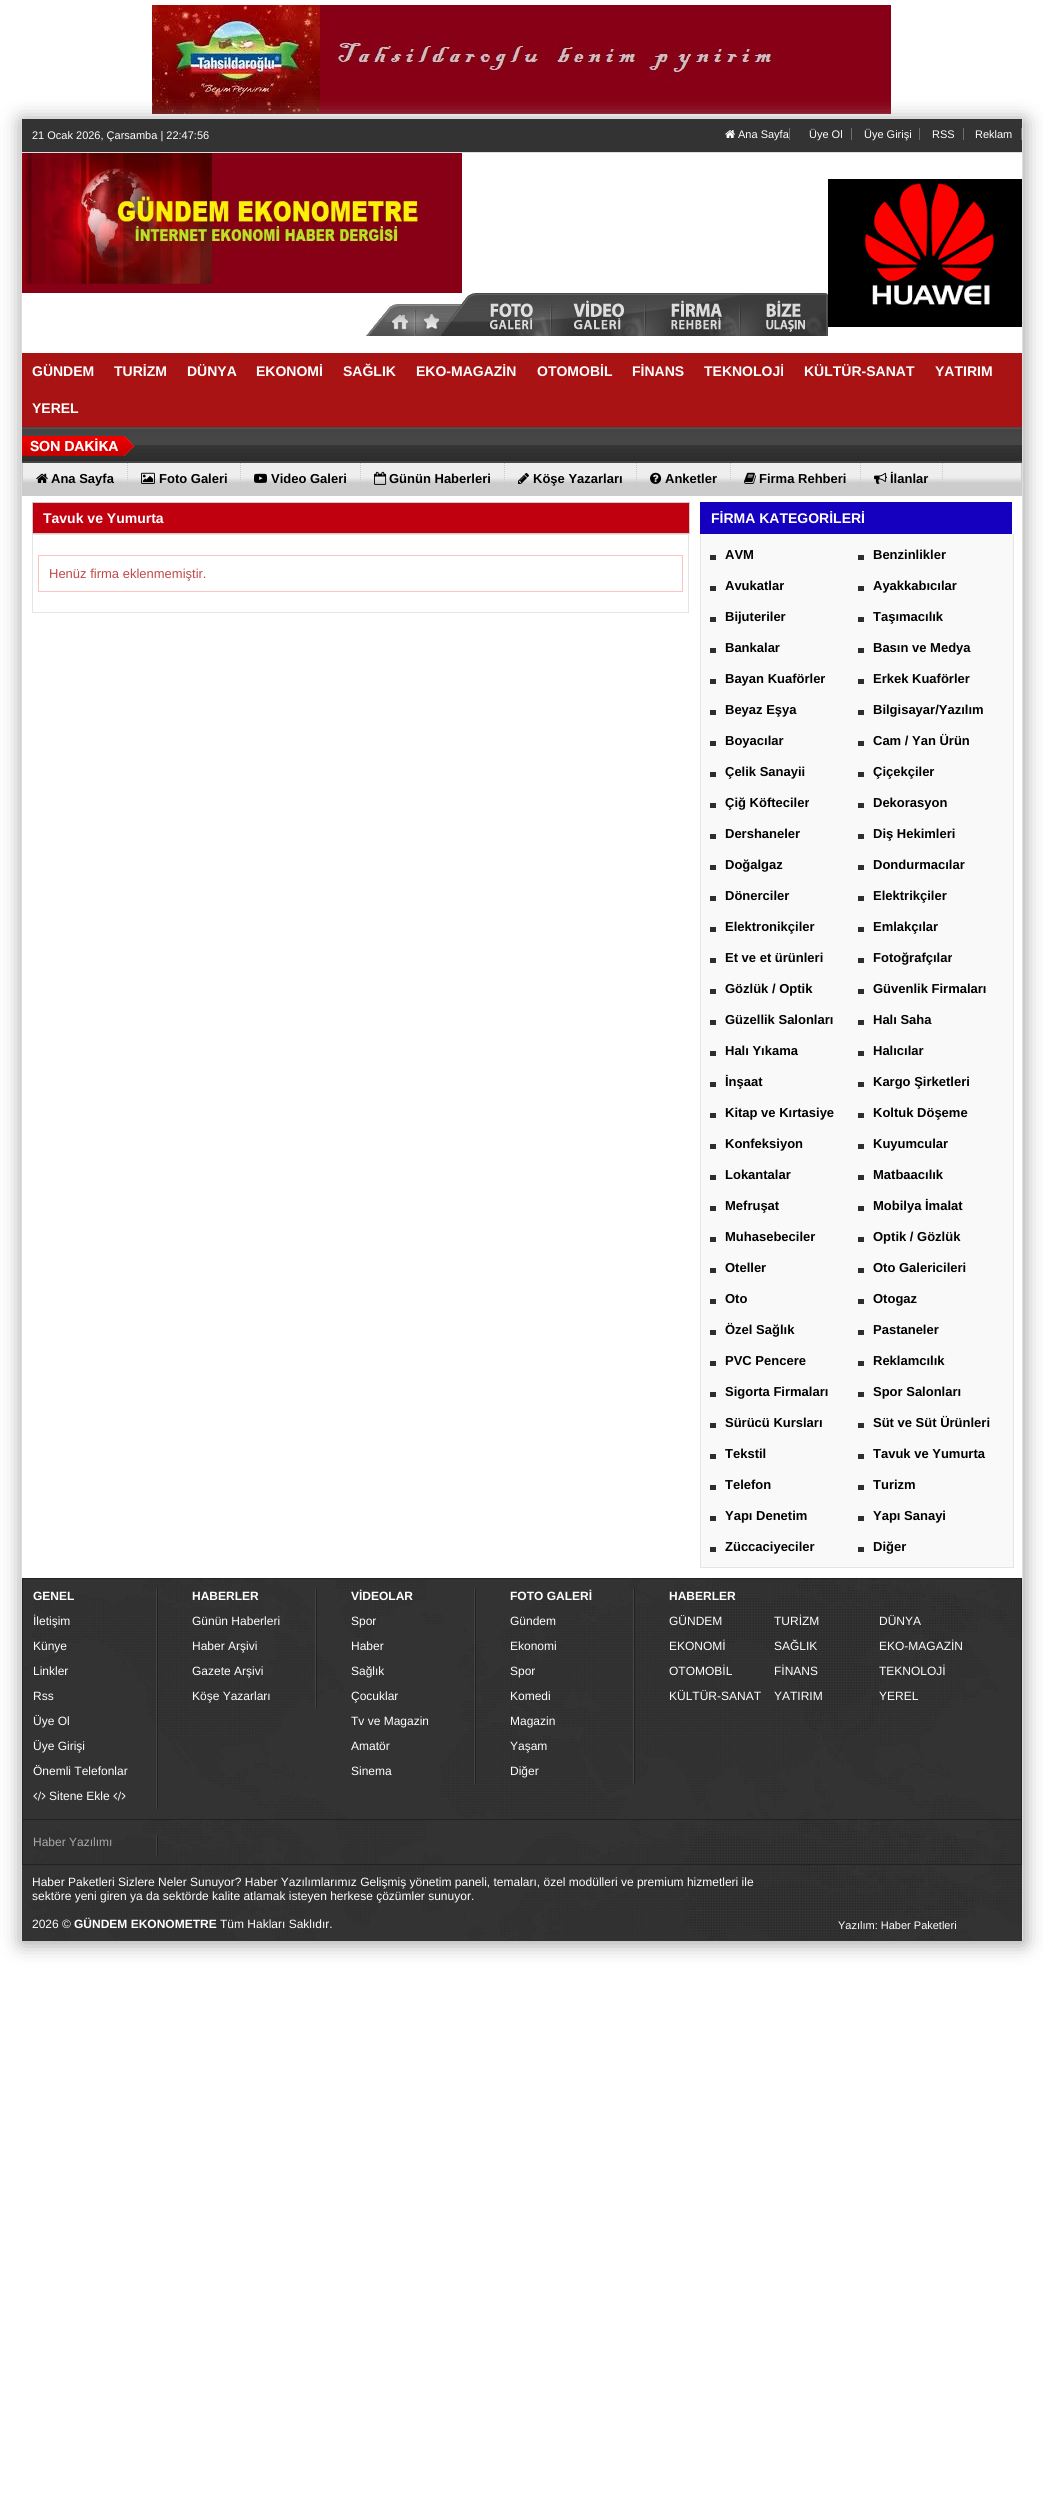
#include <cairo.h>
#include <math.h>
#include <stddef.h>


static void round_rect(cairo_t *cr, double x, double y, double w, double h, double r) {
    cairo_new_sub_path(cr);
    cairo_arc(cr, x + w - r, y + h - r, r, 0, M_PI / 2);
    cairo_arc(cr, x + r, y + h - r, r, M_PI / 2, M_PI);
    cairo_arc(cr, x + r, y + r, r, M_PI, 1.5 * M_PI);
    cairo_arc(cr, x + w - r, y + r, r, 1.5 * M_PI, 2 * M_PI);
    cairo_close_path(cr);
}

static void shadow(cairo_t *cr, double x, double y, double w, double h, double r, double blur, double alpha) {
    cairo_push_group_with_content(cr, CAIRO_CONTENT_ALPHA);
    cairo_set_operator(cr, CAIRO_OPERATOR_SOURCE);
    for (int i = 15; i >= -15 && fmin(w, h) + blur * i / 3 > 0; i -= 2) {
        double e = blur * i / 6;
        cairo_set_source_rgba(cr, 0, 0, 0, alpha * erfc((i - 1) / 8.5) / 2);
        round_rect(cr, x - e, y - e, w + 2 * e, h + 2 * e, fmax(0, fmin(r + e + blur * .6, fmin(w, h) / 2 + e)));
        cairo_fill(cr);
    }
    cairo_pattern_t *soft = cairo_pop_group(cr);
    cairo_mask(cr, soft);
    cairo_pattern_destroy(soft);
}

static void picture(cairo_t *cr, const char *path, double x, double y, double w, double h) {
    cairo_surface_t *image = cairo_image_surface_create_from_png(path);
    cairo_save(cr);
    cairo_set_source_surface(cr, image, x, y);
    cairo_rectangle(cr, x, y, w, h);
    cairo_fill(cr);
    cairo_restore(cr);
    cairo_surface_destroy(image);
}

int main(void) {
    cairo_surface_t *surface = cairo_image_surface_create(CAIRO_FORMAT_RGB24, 1043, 2497);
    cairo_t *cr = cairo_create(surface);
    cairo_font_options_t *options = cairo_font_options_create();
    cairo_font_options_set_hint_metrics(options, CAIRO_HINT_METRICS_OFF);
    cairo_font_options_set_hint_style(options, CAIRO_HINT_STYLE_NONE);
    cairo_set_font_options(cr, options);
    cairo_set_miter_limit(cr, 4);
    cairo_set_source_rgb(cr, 1, 1, 1);
    cairo_paint(cr);
    picture(cr, "img1.png", 152, 5, 739, 109);
    cairo_save(cr);
    cairo_set_fill_rule(cr, CAIRO_FILL_RULE_EVEN_ODD);
    cairo_new_path(cr);
    cairo_move_to(cr, 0, 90);
    cairo_line_to(cr, 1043, 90);
    cairo_line_to(cr, 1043, 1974);
    cairo_line_to(cr, 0, 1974);
    cairo_close_path(cr);
    cairo_move_to(cr, 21, 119);
    cairo_line_to(cr, 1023, 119);
    cairo_line_to(cr, 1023, 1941);
    cairo_line_to(cr, 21, 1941);
    cairo_close_path(cr);
    cairo_clip(cr);
    cairo_set_source_rgb(cr, 0.6, 0.6, 0.6);
    shadow(cr, 22, 121, 1002, 1822, 0, 10, 1);
    cairo_restore(cr);
    cairo_set_source_rgb(cr, 0.867, 0.867, 0.867);
    cairo_rectangle(cr, 1022, 119, 1, 1822);
    cairo_fill(cr);
    cairo_rectangle(cr, 21, 119, 1, 1822);
    cairo_fill(cr);
    cairo_set_source_rgb(cr, 0.2, 0.2, 0.2);
    cairo_rectangle(cr, 22, 119, 1000, 33);
    cairo_fill(cr);
    cairo_set_source_rgb(cr, 0.871, 0.871, 0.871);
    cairo_rectangle(cr, 22, 152, 1000, 1);
    cairo_fill(cr);
    cairo_select_font_face(cr, "Liberation Sans", CAIRO_FONT_SLANT_NORMAL, CAIRO_FONT_WEIGHT_NORMAL);
    cairo_set_font_size(cr, 11);
    cairo_set_source_rgb(cr, 1, 1, 1);
    cairo_move_to(cr, 32, 139);
    cairo_show_text(cr, "21 Ocak 2026, Çarsamba | 22:47:56");
    cairo_set_source_rgb(cr, 0.431, 0.431, 0.431);
    cairo_rectangle(cr, 789, 128, 1, 12);
    cairo_fill(cr);
    picture(cr, "img2.png", 725, 130, 10, 8);
    cairo_set_source_rgb(cr, 1, 1, 1);
    cairo_move_to(cr, 738, 138);
    cairo_show_text(cr, "Ana Sayfa");
    cairo_move_to(cr, 809, 138);
    cairo_show_text(cr, "Üye Ol");
    cairo_set_source_rgb(cr, 0.431, 0.431, 0.431);
    cairo_rectangle(cr, 851, 128, 1, 12);
    cairo_fill(cr);
    cairo_set_source_rgb(cr, 1, 1, 1);
    cairo_move_to(cr, 864, 138);
    cairo_show_text(cr, "Üye Girişi");
    cairo_set_source_rgb(cr, 0.431, 0.431, 0.431);
    cairo_rectangle(cr, 919, 128, 1, 12);
    cairo_fill(cr);
    cairo_set_source_rgb(cr, 1, 1, 1);
    cairo_move_to(cr, 932, 138);
    cairo_show_text(cr, "RSS");
    cairo_set_source_rgb(cr, 0.431, 0.431, 0.431);
    cairo_rectangle(cr, 963, 128, 1, 12);
    cairo_fill(cr);
    cairo_set_source_rgb(cr, 1, 1, 1);
    cairo_move_to(cr, 975, 138);
    cairo_show_text(cr, "Reklam");
    cairo_set_source_rgb(cr, 0.431, 0.431, 0.431);
    cairo_rectangle(cr, 1021, 128, 1, 12);
    cairo_fill(cr);
    picture(cr, "img3.png", 22, 153, 440, 140);
    picture(cr, "img4.png", 366, 293, 462, 43);
    picture(cr, "img5.png", 828, 179, 194, 148);
    cairo_set_source_rgb(cr, 0.663, 0.075, 0.075);
    cairo_rectangle(cr, 22, 353, 1000, 74);
    cairo_fill(cr);
    cairo_select_font_face(cr, "Liberation Sans", CAIRO_FONT_SLANT_NORMAL, CAIRO_FONT_WEIGHT_BOLD);
    cairo_set_font_size(cr, 14);
    cairo_set_source_rgb(cr, 1, 1, 1);
    cairo_move_to(cr, 32, 376);
    cairo_show_text(cr, "GÜNDEM");
    cairo_move_to(cr, 114, 376);
    cairo_show_text(cr, "TURİZM");
    cairo_move_to(cr, 187, 376);
    cairo_show_text(cr, "DÜNYA");
    cairo_move_to(cr, 256, 376);
    cairo_show_text(cr, "EKONOMİ");
    cairo_move_to(cr, 343, 376);
    cairo_show_text(cr, "SAĞLIK");
    cairo_move_to(cr, 416, 376);
    cairo_show_text(cr, "EKO-MAGAZİN");
    cairo_move_to(cr, 537, 376);
    cairo_show_text(cr, "OTOMOBİL");
    cairo_move_to(cr, 632, 376);
    cairo_show_text(cr, "FİNANS");
    cairo_move_to(cr, 704, 376);
    cairo_show_text(cr, "TEKNOLOJİ");
    cairo_move_to(cr, 804, 376);
    cairo_show_text(cr, "KÜLTÜR-SANAT");
    cairo_move_to(cr, 935, 376);
    cairo_show_text(cr, "YATIRIM");
    cairo_move_to(cr, 32, 413);
    cairo_show_text(cr, "YEREL");
    picture(cr, "img6.png", 22, 427, 1000, 36);
    picture(cr, "img7.png", 22, 436, 112, 20);
    picture(cr, "img8.png", 23, 463, 998, 32);
    cairo_set_source_rgb(cr, 0.8, 0.8, 0.8);
    cairo_rectangle(cr, 1021, 463, 1, 33);
    cairo_fill(cr);
    cairo_rectangle(cr, 22, 495, 1000, 1);
    cairo_fill(cr);
    cairo_rectangle(cr, 22, 463, 1, 33);
    cairo_fill(cr);
    cairo_new_path(cr);
    cairo_move_to(cr, 127.5, 463);
    cairo_line_to(cr, 127.5, 495);
    cairo_set_source_rgb(cr, 0.796, 0.796, 0.796);
    cairo_set_line_width(cr, 1);
    cairo_set_dash(cr, (double[]){1, 1}, 2, 0);
    cairo_stroke(cr);
    picture(cr, "img9.png", 36, 473, 12, 10);
    cairo_set_font_size(cr, 13);
    cairo_set_source_rgb(cr, 0, 0, 0);
    cairo_move_to(cr, 51, 483);
    cairo_show_text(cr, "Ana Sayfa");
    cairo_new_path(cr);
    cairo_move_to(cr, 240.5, 463);
    cairo_line_to(cr, 240.5, 495);
    cairo_set_source_rgb(cr, 0.796, 0.796, 0.796);
    cairo_stroke(cr);
    picture(cr, "img10.png", 141, 472, 14, 12);
    cairo_set_source_rgb(cr, 0, 0, 0);
    cairo_move_to(cr, 159, 483);
    cairo_show_text(cr, "Foto Galeri");
    cairo_new_path(cr);
    cairo_move_to(cr, 360.5, 463);
    cairo_line_to(cr, 360.5, 495);
    cairo_set_source_rgb(cr, 0.796, 0.796, 0.796);
    cairo_stroke(cr);
    picture(cr, "img11.png", 254, 473, 13, 10);
    cairo_set_source_rgb(cr, 0, 0, 0);
    cairo_move_to(cr, 271, 483);
    cairo_show_text(cr, "Video Galeri");
    cairo_new_path(cr);
    cairo_move_to(cr, 504.5, 463);
    cairo_line_to(cr, 504.5, 495);
    cairo_set_source_rgb(cr, 0.796, 0.796, 0.796);
    cairo_stroke(cr);
    picture(cr, "img12.png", 374, 471, 13, 14);
    cairo_set_source_rgb(cr, 0, 0, 0);
    cairo_move_to(cr, 389, 483);
    cairo_show_text(cr, "Günün Haberleri");
    cairo_new_path(cr);
    cairo_move_to(cr, 636.5, 463);
    cairo_line_to(cr, 636.5, 495);
    cairo_set_source_rgb(cr, 0.796, 0.796, 0.796);
    cairo_stroke(cr);
    picture(cr, "img13.png", 518, 473, 11, 11);
    cairo_set_source_rgb(cr, 0, 0, 0);
    cairo_move_to(cr, 533, 483);
    cairo_show_text(cr, "Köşe Yazarları");
    cairo_new_path(cr);
    cairo_move_to(cr, 730.5, 463);
    cairo_line_to(cr, 730.5, 495);
    cairo_set_source_rgb(cr, 0.796, 0.796, 0.796);
    cairo_stroke(cr);
    picture(cr, "img14.png", 650, 472, 12, 12);
    cairo_set_source_rgb(cr, 0, 0, 0);
    cairo_move_to(cr, 665, 483);
    cairo_show_text(cr, "Anketler");
    cairo_new_path(cr);
    cairo_move_to(cr, 860.5, 463);
    cairo_line_to(cr, 860.5, 495);
    cairo_set_source_rgb(cr, 0.796, 0.796, 0.796);
    cairo_stroke(cr);
    picture(cr, "img15.png", 744, 472, 12, 12);
    cairo_set_source_rgb(cr, 0, 0, 0);
    cairo_move_to(cr, 759, 483);
    cairo_show_text(cr, "Firma Rehberi");
    cairo_new_path(cr);
    cairo_move_to(cr, 942.5, 463);
    cairo_line_to(cr, 942.5, 495);
    cairo_set_source_rgb(cr, 0.796, 0.796, 0.796);
    cairo_stroke(cr);
    picture(cr, "img16.png", 874, 472, 13, 12);
    cairo_set_source_rgb(cr, 0, 0, 0);
    cairo_move_to(cr, 890, 483);
    cairo_show_text(cr, "İlanlar");
    cairo_set_source_rgb(cr, 0.757, 0, 0.059);
    cairo_rectangle(cr, 32.5, 502.5, 657, 31);
    cairo_fill_preserve(cr);
    cairo_set_source_rgb(cr, 0.8, 0.8, 0.8);
    cairo_set_dash(cr, NULL, 0, 0);
    cairo_stroke(cr);
    cairo_set_font_size(cr, 14);
    cairo_set_source_rgb(cr, 1, 1, 1);
    cairo_move_to(cr, 43, 523);
    cairo_show_text(cr, "Tavuk ve Yumurta");
    cairo_rectangle(cr, 32.5, 534.5, 656, 78);
    cairo_set_source_rgb(cr, 0.898, 0.898, 0.898);
    cairo_stroke(cr);
    cairo_rectangle(cr, 38.5, 555.5, 644, 36);
    cairo_set_source_rgb(cr, 1, 0.761, 0.761);
    cairo_stroke(cr);
    cairo_select_font_face(cr, "Liberation Sans", CAIRO_FONT_SLANT_NORMAL, CAIRO_FONT_WEIGHT_NORMAL);
    cairo_set_font_size(cr, 13);
    cairo_set_source_rgb(cr, 0.761, 0.282, 0.282);
    cairo_move_to(cr, 49, 578);
    cairo_show_text(cr, "Henüz firma eklenmemiştir.");
    cairo_set_source_rgb(cr, 0.086, 0, 0.749);
    cairo_rectangle(cr, 700, 502, 312, 32);
    cairo_fill(cr);
    cairo_select_font_face(cr, "Liberation Sans", CAIRO_FONT_SLANT_NORMAL, CAIRO_FONT_WEIGHT_BOLD);
    cairo_set_font_size(cr, 14);
    cairo_set_source_rgb(cr, 1, 1, 1);
    cairo_move_to(cr, 711, 523);
    cairo_show_text(cr, "FİRMA KATEGORİLERİ");
    cairo_set_source_rgb(cr, 0.973, 0.973, 0.973);
    cairo_rectangle(cr, 701, 534, 312, 1033);
    cairo_fill(cr);
    cairo_set_source_rgb(cr, 0.898, 0.898, 0.898);
    cairo_rectangle(cr, 1013, 534, 1, 1034);
    cairo_fill(cr);
    cairo_rectangle(cr, 700, 1567, 314, 1);
    cairo_fill(cr);
    cairo_rectangle(cr, 700, 534, 1, 1034);
    cairo_fill(cr);
    cairo_set_source_rgb(cr, 0.18, 0.18, 0.18);
    cairo_rectangle(cr, 710, 555, 6, 5);
    cairo_fill(cr);
    cairo_set_font_size(cr, 13);
    cairo_set_source_rgb(cr, 0, 0, 0);
    cairo_move_to(cr, 725, 559);
    cairo_show_text(cr, "AVM");
    cairo_set_source_rgb(cr, 0.18, 0.18, 0.18);
    cairo_rectangle(cr, 858, 555, 6, 5);
    cairo_fill(cr);
    cairo_set_source_rgb(cr, 0, 0, 0);
    cairo_move_to(cr, 873, 559);
    cairo_show_text(cr, "Benzinlikler");
    cairo_set_source_rgb(cr, 0.18, 0.18, 0.18);
    cairo_rectangle(cr, 710, 586, 6, 5);
    cairo_fill(cr);
    cairo_set_source_rgb(cr, 0, 0, 0);
    cairo_move_to(cr, 725, 590);
    cairo_show_text(cr, "Avukatlar");
    cairo_set_source_rgb(cr, 0.18, 0.18, 0.18);
    cairo_rectangle(cr, 858, 586, 6, 5);
    cairo_fill(cr);
    cairo_set_source_rgb(cr, 0, 0, 0);
    cairo_move_to(cr, 873, 590);
    cairo_show_text(cr, "Ayakkabıcılar");
    cairo_set_source_rgb(cr, 0.18, 0.18, 0.18);
    cairo_rectangle(cr, 710, 617, 6, 5);
    cairo_fill(cr);
    cairo_set_source_rgb(cr, 0, 0, 0);
    cairo_move_to(cr, 725, 621);
    cairo_show_text(cr, "Bijuteriler");
    cairo_set_source_rgb(cr, 0.18, 0.18, 0.18);
    cairo_rectangle(cr, 858, 617, 6, 5);
    cairo_fill(cr);
    cairo_set_source_rgb(cr, 0, 0, 0);
    cairo_move_to(cr, 873, 621);
    cairo_show_text(cr, "Taşımacılık");
    cairo_set_source_rgb(cr, 0.18, 0.18, 0.18);
    cairo_rectangle(cr, 710, 648, 6, 5);
    cairo_fill(cr);
    cairo_set_source_rgb(cr, 0, 0, 0);
    cairo_move_to(cr, 725, 652);
    cairo_show_text(cr, "Bankalar");
    cairo_set_source_rgb(cr, 0.18, 0.18, 0.18);
    cairo_rectangle(cr, 858, 648, 6, 5);
    cairo_fill(cr);
    cairo_set_source_rgb(cr, 0, 0, 0);
    cairo_move_to(cr, 873, 652);
    cairo_show_text(cr, "Basın ve Medya");
    cairo_set_source_rgb(cr, 0.18, 0.18, 0.18);
    cairo_rectangle(cr, 710, 679, 6, 5);
    cairo_fill(cr);
    cairo_set_source_rgb(cr, 0, 0, 0);
    cairo_move_to(cr, 725, 683);
    cairo_show_text(cr, "Bayan Kuaförler");
    cairo_set_source_rgb(cr, 0.18, 0.18, 0.18);
    cairo_rectangle(cr, 858, 679, 6, 5);
    cairo_fill(cr);
    cairo_set_source_rgb(cr, 0, 0, 0);
    cairo_move_to(cr, 873, 683);
    cairo_show_text(cr, "Erkek Kuaförler");
    cairo_set_source_rgb(cr, 0.18, 0.18, 0.18);
    cairo_rectangle(cr, 710, 710, 6, 5);
    cairo_fill(cr);
    cairo_set_source_rgb(cr, 0, 0, 0);
    cairo_move_to(cr, 725, 714);
    cairo_show_text(cr, "Beyaz Eşya");
    cairo_set_source_rgb(cr, 0.18, 0.18, 0.18);
    cairo_rectangle(cr, 858, 710, 6, 5);
    cairo_fill(cr);
    cairo_set_source_rgb(cr, 0, 0, 0);
    cairo_move_to(cr, 873, 714);
    cairo_show_text(cr, "Bilgisayar/Yazılım");
    cairo_set_source_rgb(cr, 0.18, 0.18, 0.18);
    cairo_rectangle(cr, 710, 741, 6, 5);
    cairo_fill(cr);
    cairo_set_source_rgb(cr, 0, 0, 0);
    cairo_move_to(cr, 725, 745);
    cairo_show_text(cr, "Boyacılar");
    cairo_set_source_rgb(cr, 0.18, 0.18, 0.18);
    cairo_rectangle(cr, 858, 741, 6, 5);
    cairo_fill(cr);
    cairo_set_source_rgb(cr, 0, 0, 0);
    cairo_move_to(cr, 873, 745);
    cairo_show_text(cr, "Cam / Yan Ürün");
    cairo_set_source_rgb(cr, 0.18, 0.18, 0.18);
    cairo_rectangle(cr, 710, 772, 6, 5);
    cairo_fill(cr);
    cairo_set_source_rgb(cr, 0, 0, 0);
    cairo_move_to(cr, 725, 776);
    cairo_show_text(cr, "Çelik Sanayii");
    cairo_set_source_rgb(cr, 0.18, 0.18, 0.18);
    cairo_rectangle(cr, 858, 772, 6, 5);
    cairo_fill(cr);
    cairo_set_source_rgb(cr, 0, 0, 0);
    cairo_move_to(cr, 873, 776);
    cairo_show_text(cr, "Çiçekçiler");
    cairo_set_source_rgb(cr, 0.18, 0.18, 0.18);
    cairo_rectangle(cr, 710, 803, 6, 5);
    cairo_fill(cr);
    cairo_set_source_rgb(cr, 0, 0, 0);
    cairo_move_to(cr, 725, 807);
    cairo_show_text(cr, "Çiğ Köfteciler");
    cairo_set_source_rgb(cr, 0.18, 0.18, 0.18);
    cairo_rectangle(cr, 858, 803, 6, 5);
    cairo_fill(cr);
    cairo_set_source_rgb(cr, 0, 0, 0);
    cairo_move_to(cr, 873, 807);
    cairo_show_text(cr, "Dekorasyon");
    cairo_set_source_rgb(cr, 0.18, 0.18, 0.18);
    cairo_rectangle(cr, 710, 834, 6, 5);
    cairo_fill(cr);
    cairo_set_source_rgb(cr, 0, 0, 0);
    cairo_move_to(cr, 725, 838);
    cairo_show_text(cr, "Dershaneler");
    cairo_set_source_rgb(cr, 0.18, 0.18, 0.18);
    cairo_rectangle(cr, 858, 834, 6, 5);
    cairo_fill(cr);
    cairo_set_source_rgb(cr, 0, 0, 0);
    cairo_move_to(cr, 873, 838);
    cairo_show_text(cr, "Diş Hekimleri");
    cairo_set_source_rgb(cr, 0.18, 0.18, 0.18);
    cairo_rectangle(cr, 710, 865, 6, 5);
    cairo_fill(cr);
    cairo_set_source_rgb(cr, 0, 0, 0);
    cairo_move_to(cr, 725, 869);
    cairo_show_text(cr, "Doğalgaz");
    cairo_set_source_rgb(cr, 0.18, 0.18, 0.18);
    cairo_rectangle(cr, 858, 865, 6, 5);
    cairo_fill(cr);
    cairo_set_source_rgb(cr, 0, 0, 0);
    cairo_move_to(cr, 873, 869);
    cairo_show_text(cr, "Dondurmacılar");
    cairo_set_source_rgb(cr, 0.18, 0.18, 0.18);
    cairo_rectangle(cr, 710, 896, 6, 5);
    cairo_fill(cr);
    cairo_set_source_rgb(cr, 0, 0, 0);
    cairo_move_to(cr, 725, 900);
    cairo_show_text(cr, "Dönerciler");
    cairo_set_source_rgb(cr, 0.18, 0.18, 0.18);
    cairo_rectangle(cr, 858, 896, 6, 5);
    cairo_fill(cr);
    cairo_set_source_rgb(cr, 0, 0, 0);
    cairo_move_to(cr, 873, 900);
    cairo_show_text(cr, "Elektrikçiler");
    cairo_set_source_rgb(cr, 0.18, 0.18, 0.18);
    cairo_rectangle(cr, 710, 927, 6, 5);
    cairo_fill(cr);
    cairo_set_source_rgb(cr, 0, 0, 0);
    cairo_move_to(cr, 725, 931);
    cairo_show_text(cr, "Elektronikçiler");
    cairo_set_source_rgb(cr, 0.18, 0.18, 0.18);
    cairo_rectangle(cr, 858, 927, 6, 5);
    cairo_fill(cr);
    cairo_set_source_rgb(cr, 0, 0, 0);
    cairo_move_to(cr, 873, 931);
    cairo_show_text(cr, "Emlakçılar");
    cairo_set_source_rgb(cr, 0.18, 0.18, 0.18);
    cairo_rectangle(cr, 710, 958, 6, 5);
    cairo_fill(cr);
    cairo_set_source_rgb(cr, 0, 0, 0);
    cairo_move_to(cr, 725, 962);
    cairo_show_text(cr, "Et ve et ürünleri");
    cairo_set_source_rgb(cr, 0.18, 0.18, 0.18);
    cairo_rectangle(cr, 858, 958, 6, 5);
    cairo_fill(cr);
    cairo_set_source_rgb(cr, 0, 0, 0);
    cairo_move_to(cr, 873, 962);
    cairo_show_text(cr, "Fotoğrafçılar");
    cairo_set_source_rgb(cr, 0.18, 0.18, 0.18);
    cairo_rectangle(cr, 710, 989, 6, 5);
    cairo_fill(cr);
    cairo_set_source_rgb(cr, 0, 0, 0);
    cairo_move_to(cr, 725, 993);
    cairo_show_text(cr, "Gözlük / Optik");
    cairo_set_source_rgb(cr, 0.18, 0.18, 0.18);
    cairo_rectangle(cr, 858, 989, 6, 5);
    cairo_fill(cr);
    cairo_set_source_rgb(cr, 0, 0, 0);
    cairo_move_to(cr, 873, 993);
    cairo_show_text(cr, "Güvenlik Firmaları");
    cairo_set_source_rgb(cr, 0.18, 0.18, 0.18);
    cairo_rectangle(cr, 710, 1020, 6, 5);
    cairo_fill(cr);
    cairo_set_source_rgb(cr, 0, 0, 0);
    cairo_move_to(cr, 725, 1024);
    cairo_show_text(cr, "Güzellik Salonları");
    cairo_set_source_rgb(cr, 0.18, 0.18, 0.18);
    cairo_rectangle(cr, 858, 1020, 6, 5);
    cairo_fill(cr);
    cairo_set_source_rgb(cr, 0, 0, 0);
    cairo_move_to(cr, 873, 1024);
    cairo_show_text(cr, "Halı Saha");
    cairo_set_source_rgb(cr, 0.18, 0.18, 0.18);
    cairo_rectangle(cr, 710, 1051, 6, 5);
    cairo_fill(cr);
    cairo_set_source_rgb(cr, 0, 0, 0);
    cairo_move_to(cr, 725, 1055);
    cairo_show_text(cr, "Halı Yıkama");
    cairo_set_source_rgb(cr, 0.18, 0.18, 0.18);
    cairo_rectangle(cr, 858, 1051, 6, 5);
    cairo_fill(cr);
    cairo_set_source_rgb(cr, 0, 0, 0);
    cairo_move_to(cr, 873, 1055);
    cairo_show_text(cr, "Halıcılar");
    cairo_set_source_rgb(cr, 0.18, 0.18, 0.18);
    cairo_rectangle(cr, 710, 1082, 6, 5);
    cairo_fill(cr);
    cairo_set_source_rgb(cr, 0, 0, 0);
    cairo_move_to(cr, 725, 1086);
    cairo_show_text(cr, "İnşaat");
    cairo_set_source_rgb(cr, 0.18, 0.18, 0.18);
    cairo_rectangle(cr, 858, 1082, 6, 5);
    cairo_fill(cr);
    cairo_set_source_rgb(cr, 0, 0, 0);
    cairo_move_to(cr, 873, 1086);
    cairo_show_text(cr, "Kargo Şirketleri");
    cairo_set_source_rgb(cr, 0.18, 0.18, 0.18);
    cairo_rectangle(cr, 710, 1113, 6, 5);
    cairo_fill(cr);
    cairo_set_source_rgb(cr, 0, 0, 0);
    cairo_move_to(cr, 725, 1117);
    cairo_show_text(cr, "Kitap ve Kırtasiye");
    cairo_set_source_rgb(cr, 0.18, 0.18, 0.18);
    cairo_rectangle(cr, 858, 1113, 6, 5);
    cairo_fill(cr);
    cairo_set_source_rgb(cr, 0, 0, 0);
    cairo_move_to(cr, 873, 1117);
    cairo_show_text(cr, "Koltuk Döşeme");
    cairo_set_source_rgb(cr, 0.18, 0.18, 0.18);
    cairo_rectangle(cr, 710, 1144, 6, 5);
    cairo_fill(cr);
    cairo_set_source_rgb(cr, 0, 0, 0);
    cairo_move_to(cr, 725, 1148);
    cairo_show_text(cr, "Konfeksiyon");
    cairo_set_source_rgb(cr, 0.18, 0.18, 0.18);
    cairo_rectangle(cr, 858, 1144, 6, 5);
    cairo_fill(cr);
    cairo_set_source_rgb(cr, 0, 0, 0);
    cairo_move_to(cr, 873, 1148);
    cairo_show_text(cr, "Kuyumcular");
    cairo_set_source_rgb(cr, 0.18, 0.18, 0.18);
    cairo_rectangle(cr, 710, 1175, 6, 5);
    cairo_fill(cr);
    cairo_set_source_rgb(cr, 0, 0, 0);
    cairo_move_to(cr, 725, 1179);
    cairo_show_text(cr, "Lokantalar");
    cairo_set_source_rgb(cr, 0.18, 0.18, 0.18);
    cairo_rectangle(cr, 858, 1175, 6, 5);
    cairo_fill(cr);
    cairo_set_source_rgb(cr, 0, 0, 0);
    cairo_move_to(cr, 873, 1179);
    cairo_show_text(cr, "Matbaacılık");
    cairo_set_source_rgb(cr, 0.18, 0.18, 0.18);
    cairo_rectangle(cr, 710, 1206, 6, 5);
    cairo_fill(cr);
    cairo_set_source_rgb(cr, 0, 0, 0);
    cairo_move_to(cr, 725, 1210);
    cairo_show_text(cr, "Mefruşat");
    cairo_set_source_rgb(cr, 0.18, 0.18, 0.18);
    cairo_rectangle(cr, 858, 1206, 6, 5);
    cairo_fill(cr);
    cairo_set_source_rgb(cr, 0, 0, 0);
    cairo_move_to(cr, 873, 1210);
    cairo_show_text(cr, "Mobilya İmalat");
    cairo_set_source_rgb(cr, 0.18, 0.18, 0.18);
    cairo_rectangle(cr, 710, 1237, 6, 5);
    cairo_fill(cr);
    cairo_set_source_rgb(cr, 0, 0, 0);
    cairo_move_to(cr, 725, 1241);
    cairo_show_text(cr, "Muhasebeciler");
    cairo_set_source_rgb(cr, 0.18, 0.18, 0.18);
    cairo_rectangle(cr, 858, 1237, 6, 5);
    cairo_fill(cr);
    cairo_set_source_rgb(cr, 0, 0, 0);
    cairo_move_to(cr, 873, 1241);
    cairo_show_text(cr, "Optik / Gözlük");
    cairo_set_source_rgb(cr, 0.18, 0.18, 0.18);
    cairo_rectangle(cr, 710, 1268, 6, 5);
    cairo_fill(cr);
    cairo_set_source_rgb(cr, 0, 0, 0);
    cairo_move_to(cr, 725, 1272);
    cairo_show_text(cr, "Oteller");
    cairo_set_source_rgb(cr, 0.18, 0.18, 0.18);
    cairo_rectangle(cr, 858, 1268, 6, 5);
    cairo_fill(cr);
    cairo_set_source_rgb(cr, 0, 0, 0);
    cairo_move_to(cr, 873, 1272);
    cairo_show_text(cr, "Oto Galericileri");
    cairo_set_source_rgb(cr, 0.18, 0.18, 0.18);
    cairo_rectangle(cr, 710, 1299, 6, 5);
    cairo_fill(cr);
    cairo_set_source_rgb(cr, 0, 0, 0);
    cairo_move_to(cr, 725, 1303);
    cairo_show_text(cr, "Oto");
    cairo_set_source_rgb(cr, 0.18, 0.18, 0.18);
    cairo_rectangle(cr, 858, 1299, 6, 5);
    cairo_fill(cr);
    cairo_set_source_rgb(cr, 0, 0, 0);
    cairo_move_to(cr, 873, 1303);
    cairo_show_text(cr, "Otogaz");
    cairo_set_source_rgb(cr, 0.18, 0.18, 0.18);
    cairo_rectangle(cr, 710, 1330, 6, 5);
    cairo_fill(cr);
    cairo_set_source_rgb(cr, 0, 0, 0);
    cairo_move_to(cr, 725, 1334);
    cairo_show_text(cr, "Özel Sağlık");
    cairo_set_source_rgb(cr, 0.18, 0.18, 0.18);
    cairo_rectangle(cr, 858, 1330, 6, 5);
    cairo_fill(cr);
    cairo_set_source_rgb(cr, 0, 0, 0);
    cairo_move_to(cr, 873, 1334);
    cairo_show_text(cr, "Pastaneler");
    cairo_set_source_rgb(cr, 0.18, 0.18, 0.18);
    cairo_rectangle(cr, 710, 1361, 6, 5);
    cairo_fill(cr);
    cairo_set_source_rgb(cr, 0, 0, 0);
    cairo_move_to(cr, 725, 1365);
    cairo_show_text(cr, "PVC Pencere");
    cairo_set_source_rgb(cr, 0.18, 0.18, 0.18);
    cairo_rectangle(cr, 858, 1361, 6, 5);
    cairo_fill(cr);
    cairo_set_source_rgb(cr, 0, 0, 0);
    cairo_move_to(cr, 873, 1365);
    cairo_show_text(cr, "Reklamcılık");
    cairo_set_source_rgb(cr, 0.18, 0.18, 0.18);
    cairo_rectangle(cr, 710, 1392, 6, 5);
    cairo_fill(cr);
    cairo_set_source_rgb(cr, 0, 0, 0);
    cairo_move_to(cr, 725, 1396);
    cairo_show_text(cr, "Sigorta Firmaları");
    cairo_set_source_rgb(cr, 0.18, 0.18, 0.18);
    cairo_rectangle(cr, 858, 1392, 6, 5);
    cairo_fill(cr);
    cairo_set_source_rgb(cr, 0, 0, 0);
    cairo_move_to(cr, 873, 1396);
    cairo_show_text(cr, "Spor Salonları");
    cairo_set_source_rgb(cr, 0.18, 0.18, 0.18);
    cairo_rectangle(cr, 710, 1423, 6, 5);
    cairo_fill(cr);
    cairo_set_source_rgb(cr, 0, 0, 0);
    cairo_move_to(cr, 725, 1427);
    cairo_show_text(cr, "Sürücü Kursları");
    cairo_set_source_rgb(cr, 0.18, 0.18, 0.18);
    cairo_rectangle(cr, 858, 1423, 6, 5);
    cairo_fill(cr);
    cairo_set_source_rgb(cr, 0, 0, 0);
    cairo_move_to(cr, 873, 1427);
    cairo_show_text(cr, "Süt ve Süt Ürünleri");
    cairo_set_source_rgb(cr, 0.18, 0.18, 0.18);
    cairo_rectangle(cr, 710, 1454, 6, 5);
    cairo_fill(cr);
    cairo_set_source_rgb(cr, 0, 0, 0);
    cairo_move_to(cr, 725, 1458);
    cairo_show_text(cr, "Tekstil");
    cairo_set_source_rgb(cr, 0.18, 0.18, 0.18);
    cairo_rectangle(cr, 858, 1454, 6, 5);
    cairo_fill(cr);
    cairo_set_source_rgb(cr, 0, 0, 0);
    cairo_move_to(cr, 873, 1458);
    cairo_show_text(cr, "Tavuk ve Yumurta");
    cairo_set_source_rgb(cr, 0.18, 0.18, 0.18);
    cairo_rectangle(cr, 710, 1485, 6, 5);
    cairo_fill(cr);
    cairo_set_source_rgb(cr, 0, 0, 0);
    cairo_move_to(cr, 725, 1489);
    cairo_show_text(cr, "Telefon");
    cairo_set_source_rgb(cr, 0.18, 0.18, 0.18);
    cairo_rectangle(cr, 858, 1485, 6, 5);
    cairo_fill(cr);
    cairo_set_source_rgb(cr, 0, 0, 0);
    cairo_move_to(cr, 873, 1489);
    cairo_show_text(cr, "Turizm");
    cairo_set_source_rgb(cr, 0.18, 0.18, 0.18);
    cairo_rectangle(cr, 710, 1516, 6, 5);
    cairo_fill(cr);
    cairo_set_source_rgb(cr, 0, 0, 0);
    cairo_move_to(cr, 725, 1520);
    cairo_show_text(cr, "Yapı Denetim");
    cairo_set_source_rgb(cr, 0.18, 0.18, 0.18);
    cairo_rectangle(cr, 858, 1516, 6, 5);
    cairo_fill(cr);
    cairo_set_source_rgb(cr, 0, 0, 0);
    cairo_move_to(cr, 873, 1520);
    cairo_show_text(cr, "Yapı Sanayi");
    cairo_set_source_rgb(cr, 0.18, 0.18, 0.18);
    cairo_rectangle(cr, 710, 1547, 6, 5);
    cairo_fill(cr);
    cairo_set_source_rgb(cr, 0, 0, 0);
    cairo_move_to(cr, 725, 1551);
    cairo_show_text(cr, "Züccaciyeciler");
    cairo_set_source_rgb(cr, 0.18, 0.18, 0.18);
    cairo_rectangle(cr, 858, 1547, 6, 5);
    cairo_fill(cr);
    cairo_set_source_rgb(cr, 0, 0, 0);
    cairo_move_to(cr, 873, 1551);
    cairo_show_text(cr, "Diğer");
    cairo_set_source_rgb(cr, 0.2, 0.2, 0.2);
    cairo_rectangle(cr, 23, 1579, 998, 240);
    cairo_fill(cr);
    picture(cr, "img17.png", 24, 1579, 996, 240);
    cairo_rectangle(cr, 22.5, 1578.5, 999, 241);
    cairo_set_source_rgb(cr, 0.133, 0.133, 0.133);
    cairo_stroke(cr);
    picture(cr, "img18.png", 156, 1589, 2, 220);
    cairo_set_font_size(cr, 12);
    cairo_set_source_rgb(cr, 1, 1, 1);
    cairo_move_to(cr, 33, 1600);
    cairo_show_text(cr, "GENEL");
    cairo_select_font_face(cr, "Liberation Sans", CAIRO_FONT_SLANT_NORMAL, CAIRO_FONT_WEIGHT_NORMAL);
    cairo_move_to(cr, 33, 1625);
    cairo_show_text(cr, "İletişim");
    cairo_move_to(cr, 33, 1650);
    cairo_show_text(cr, "Künye");
    cairo_move_to(cr, 33, 1675);
    cairo_show_text(cr, "Linkler");
    cairo_move_to(cr, 33, 1700);
    cairo_show_text(cr, "Rss");
    cairo_move_to(cr, 33, 1725);
    cairo_show_text(cr, "Üye Ol");
    cairo_move_to(cr, 33, 1750);
    cairo_show_text(cr, "Üye Girişi");
    cairo_move_to(cr, 33, 1775);
    cairo_show_text(cr, "Önemli Telefonlar");
    picture(cr, "img19.png", 33, 1791, 13, 10);
    cairo_move_to(cr, 49, 1800);
    cairo_show_text(cr, "Sitene Ekle");
    picture(cr, "img19.png", 113, 1791, 13, 10);
    picture(cr, "img20.png", 315, 1589, 2, 120);
    cairo_select_font_face(cr, "Liberation Sans", CAIRO_FONT_SLANT_NORMAL, CAIRO_FONT_WEIGHT_BOLD);
    cairo_move_to(cr, 192, 1600);
    cairo_show_text(cr, "HABERLER");
    cairo_select_font_face(cr, "Liberation Sans", CAIRO_FONT_SLANT_NORMAL, CAIRO_FONT_WEIGHT_NORMAL);
    cairo_move_to(cr, 192, 1625);
    cairo_show_text(cr, "Günün Haberleri");
    cairo_move_to(cr, 192, 1650);
    cairo_show_text(cr, "Haber Arşivi");
    cairo_move_to(cr, 192, 1675);
    cairo_show_text(cr, "Gazete Arşivi");
    cairo_move_to(cr, 192, 1700);
    cairo_show_text(cr, "Köşe Yazarları");
    picture(cr, "img21.png", 474, 1589, 2, 195);
    cairo_select_font_face(cr, "Liberation Sans", CAIRO_FONT_SLANT_NORMAL, CAIRO_FONT_WEIGHT_BOLD);
    cairo_move_to(cr, 351, 1600);
    cairo_show_text(cr, "VİDEOLAR");
    cairo_select_font_face(cr, "Liberation Sans", CAIRO_FONT_SLANT_NORMAL, CAIRO_FONT_WEIGHT_NORMAL);
    cairo_move_to(cr, 351, 1625);
    cairo_show_text(cr, "Spor");
    cairo_move_to(cr, 351, 1650);
    cairo_show_text(cr, "Haber");
    cairo_move_to(cr, 351, 1675);
    cairo_show_text(cr, "Sağlık");
    cairo_move_to(cr, 351, 1700);
    cairo_show_text(cr, "Çocuklar");
    cairo_move_to(cr, 351, 1725);
    cairo_show_text(cr, "Tv ve Magazin");
    cairo_move_to(cr, 351, 1750);
    cairo_show_text(cr, "Amatör");
    cairo_move_to(cr, 351, 1775);
    cairo_show_text(cr, "Sinema");
    picture(cr, "img21.png", 633, 1589, 2, 195);
    cairo_select_font_face(cr, "Liberation Sans", CAIRO_FONT_SLANT_NORMAL, CAIRO_FONT_WEIGHT_BOLD);
    cairo_move_to(cr, 510, 1600);
    cairo_show_text(cr, "FOTO GALERİ");
    cairo_select_font_face(cr, "Liberation Sans", CAIRO_FONT_SLANT_NORMAL, CAIRO_FONT_WEIGHT_NORMAL);
    cairo_move_to(cr, 510, 1625);
    cairo_show_text(cr, "Gündem");
    cairo_move_to(cr, 510, 1650);
    cairo_show_text(cr, "Ekonomi");
    cairo_move_to(cr, 510, 1675);
    cairo_show_text(cr, "Spor");
    cairo_move_to(cr, 510, 1700);
    cairo_show_text(cr, "Komedi");
    cairo_move_to(cr, 510, 1725);
    cairo_show_text(cr, "Magazin");
    cairo_move_to(cr, 510, 1750);
    cairo_show_text(cr, "Yaşam");
    cairo_move_to(cr, 510, 1775);
    cairo_show_text(cr, "Diğer");
    cairo_select_font_face(cr, "Liberation Sans", CAIRO_FONT_SLANT_NORMAL, CAIRO_FONT_WEIGHT_BOLD);
    cairo_move_to(cr, 669, 1600);
    cairo_show_text(cr, "HABERLER");
    cairo_select_font_face(cr, "Liberation Sans", CAIRO_FONT_SLANT_NORMAL, CAIRO_FONT_WEIGHT_NORMAL);
    cairo_move_to(cr, 669, 1625);
    cairo_show_text(cr, "GÜNDEM");
    cairo_move_to(cr, 774, 1625);
    cairo_show_text(cr, "TURİZM");
    cairo_move_to(cr, 879, 1625);
    cairo_show_text(cr, "DÜNYA");
    cairo_move_to(cr, 669, 1650);
    cairo_show_text(cr, "EKONOMİ");
    cairo_move_to(cr, 774, 1650);
    cairo_show_text(cr, "SAĞLIK");
    cairo_move_to(cr, 879, 1650);
    cairo_show_text(cr, "EKO-MAGAZİN");
    cairo_move_to(cr, 669, 1675);
    cairo_show_text(cr, "OTOMOBİL");
    cairo_move_to(cr, 774, 1675);
    cairo_show_text(cr, "FİNANS");
    cairo_move_to(cr, 879, 1675);
    cairo_show_text(cr, "TEKNOLOJİ");
    cairo_move_to(cr, 669, 1700);
    cairo_show_text(cr, "KÜLTÜR-SANAT");
    cairo_move_to(cr, 774, 1700);
    cairo_show_text(cr, "YATIRIM");
    cairo_move_to(cr, 879, 1700);
    cairo_show_text(cr, "YEREL");
    cairo_set_source_rgb(cr, 0.2, 0.2, 0.2);
    cairo_rectangle(cr, 23, 1820, 998, 44);
    cairo_fill(cr);
    picture(cr, "img22.png", 29, 1820, 991, 44);
    cairo_set_source_rgb(cr, 0.133, 0.133, 0.133);
    cairo_rectangle(cr, 1021, 1820, 1, 45);
    cairo_fill(cr);
    cairo_rectangle(cr, 22, 1864, 1000, 1);
    cairo_fill(cr);
    cairo_rectangle(cr, 22, 1820, 1, 45);
    cairo_fill(cr);
    picture(cr, "img23.png", 156, 1835, 2, 20);
    cairo_set_source_rgb(cr, 0.667, 0.667, 0.667);
    cairo_move_to(cr, 33, 1846);
    cairo_show_text(cr, "Haber Yazılımı");
    cairo_set_source_rgb(cr, 0.2, 0.2, 0.2);
    cairo_rectangle(cr, 22, 1865, 1000, 76);
    cairo_fill(cr);
    picture(cr, "img24.png", 28, 1865, 994, 75);
    cairo_set_source_rgb(cr, 1, 1, 1);
    cairo_move_to(cr, 32, 1886);
    cairo_show_text(cr, "Haber Paketleri Sizlere Neler Sunuyor? Haber Yazılımlarımız Gelişmiş yönetim paneli, temaları, özel modülleri ve premium hizmetleri ile");
    cairo_move_to(cr, 32, 1900);
    cairo_show_text(cr, "sektöre yeni giren ya da sektörde kalite atlamak isteyen herkese çözümler sunuyor.");
    cairo_move_to(cr, 32, 1928);
    cairo_show_text(cr, "2026 ©");
    cairo_select_font_face(cr, "Liberation Sans", CAIRO_FONT_SLANT_NORMAL, CAIRO_FONT_WEIGHT_BOLD);
    cairo_move_to(cr, 74, 1928);
    cairo_show_text(cr, "GÜNDEM EKONOMETRE");
    cairo_select_font_face(cr, "Liberation Sans", CAIRO_FONT_SLANT_NORMAL, CAIRO_FONT_WEIGHT_NORMAL);
    cairo_move_to(cr, 220, 1928);
    cairo_show_text(cr, "Tüm Hakları Saklıdır.");
    cairo_set_font_size(cr, 11);
    cairo_move_to(cr, 838, 1929);
    cairo_show_text(cr, "Yazılım: Haber Paketleri");
    cairo_surface_write_to_png(surface, "page.png");
    cairo_font_options_destroy(options);
    cairo_destroy(cr);
    cairo_surface_destroy(surface);
    return 0;
}
